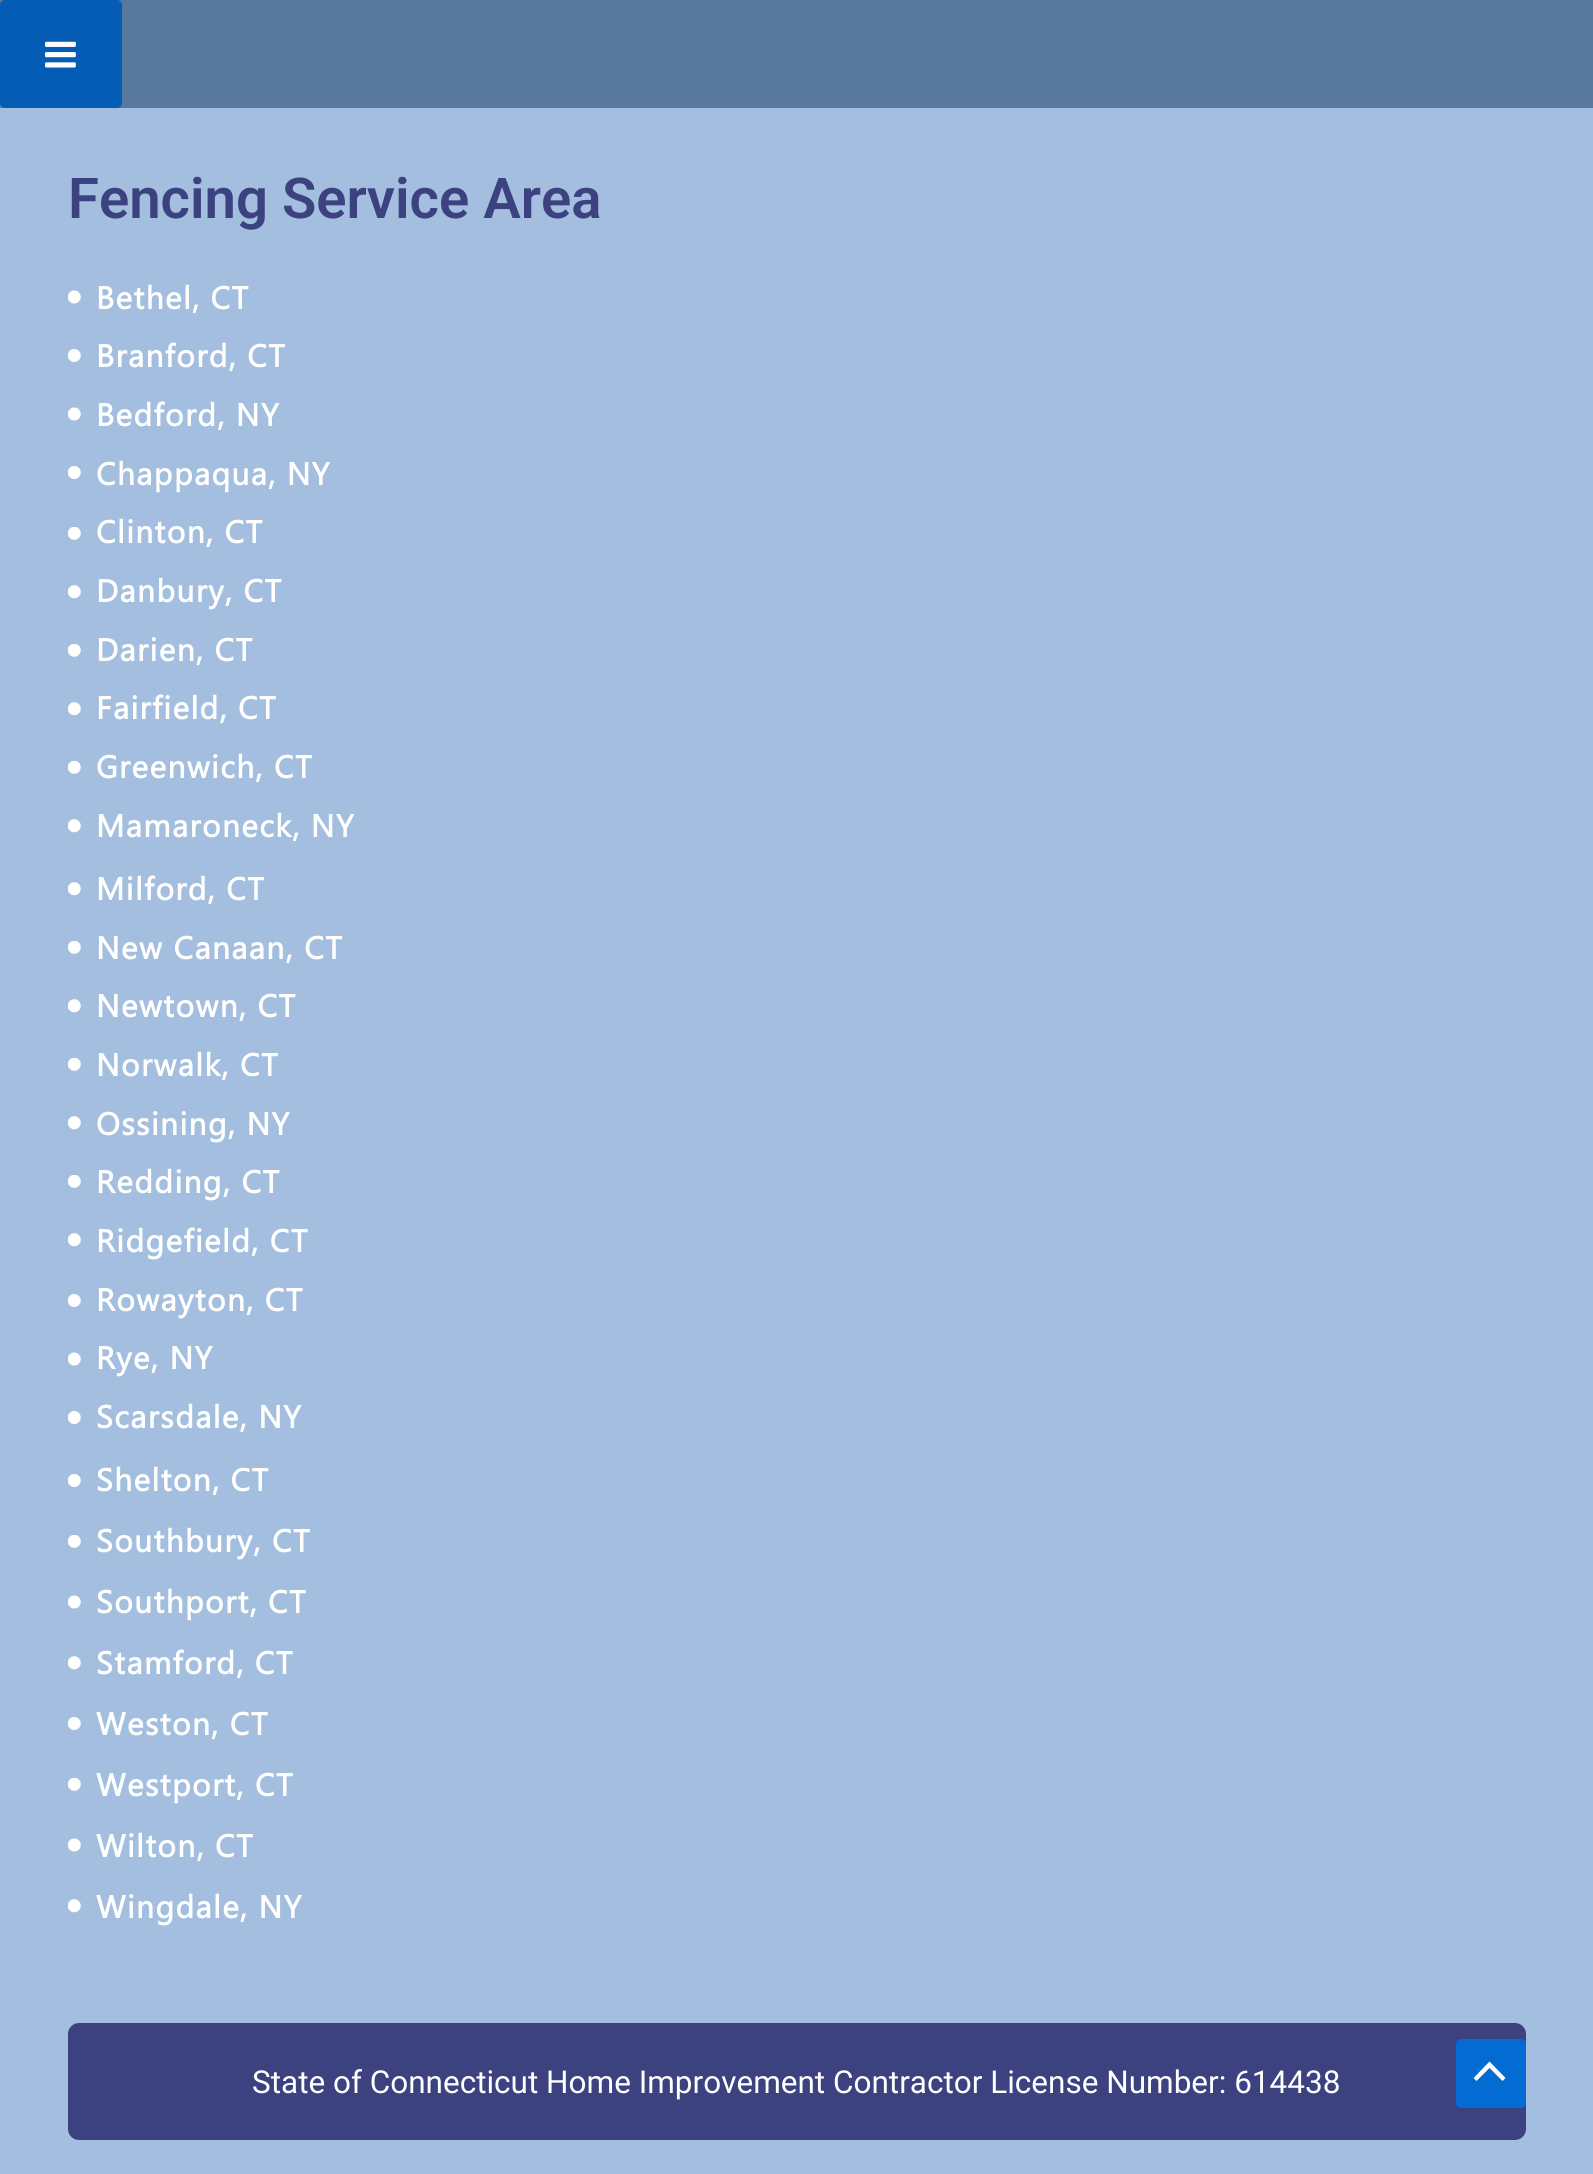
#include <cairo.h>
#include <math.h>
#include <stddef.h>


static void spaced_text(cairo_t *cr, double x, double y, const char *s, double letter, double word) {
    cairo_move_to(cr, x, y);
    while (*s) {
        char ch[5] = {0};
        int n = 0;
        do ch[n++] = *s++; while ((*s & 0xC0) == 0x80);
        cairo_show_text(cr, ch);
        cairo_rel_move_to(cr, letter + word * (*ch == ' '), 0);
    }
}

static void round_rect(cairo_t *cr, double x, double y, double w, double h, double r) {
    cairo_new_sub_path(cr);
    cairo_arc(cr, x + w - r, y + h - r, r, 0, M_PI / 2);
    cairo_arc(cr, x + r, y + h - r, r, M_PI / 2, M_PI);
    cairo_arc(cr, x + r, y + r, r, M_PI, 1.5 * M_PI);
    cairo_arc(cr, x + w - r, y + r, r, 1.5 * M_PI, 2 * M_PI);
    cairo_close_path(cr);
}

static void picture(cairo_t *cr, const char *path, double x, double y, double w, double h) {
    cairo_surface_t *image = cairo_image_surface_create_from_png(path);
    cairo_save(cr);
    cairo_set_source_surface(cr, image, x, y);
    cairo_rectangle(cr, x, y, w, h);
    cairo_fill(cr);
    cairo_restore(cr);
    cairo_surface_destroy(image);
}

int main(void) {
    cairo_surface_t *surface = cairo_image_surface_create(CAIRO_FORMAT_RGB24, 1593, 2174);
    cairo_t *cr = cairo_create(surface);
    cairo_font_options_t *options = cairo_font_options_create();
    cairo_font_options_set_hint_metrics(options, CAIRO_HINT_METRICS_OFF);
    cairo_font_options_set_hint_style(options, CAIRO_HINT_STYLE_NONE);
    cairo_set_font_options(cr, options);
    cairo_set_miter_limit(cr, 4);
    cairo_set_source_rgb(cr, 0.639, 0.745, 0.871);
    cairo_paint(cr);
    cairo_set_source_rgb(cr, 0.345, 0.471, 0.616);
    cairo_rectangle(cr, 0, 0, 1593, 108);
    cairo_fill(cr);
    cairo_set_source_rgb(cr, 0.016, 0.361, 0.706);
    round_rect(cr, 0, 0, 122, 108, 5);
    cairo_fill(cr);
    picture(cr, "img1.png", 45, 41, 31, 27);
    cairo_select_font_face(cr, "Roboto SemiBold", CAIRO_FONT_SLANT_NORMAL, CAIRO_FONT_WEIGHT_NORMAL);
    cairo_set_font_size(cr, 56.25);
    cairo_set_source_rgb(cr, 0.235, 0.255, 0.502);
    cairo_move_to(cr, 68, 218);
    cairo_show_text(cr, "Fencing Service Area");
    picture(cr, "img2.png", 68, 290, 13, 14);
    cairo_select_font_face(cr, "Segoe UI", CAIRO_FONT_SLANT_NORMAL, CAIRO_FONT_WEIGHT_BOLD);
    cairo_set_font_size(cr, 31.5);
    cairo_set_source_rgb(cr, 1, 1, 1);
    spaced_text(cr, 96, 309, "Bethel, CT", 1.5, 0);
    picture(cr, "img3.png", 68, 349, 13, 13);
    spaced_text(cr, 96, 367, "Branford, CT", 1.5, 0);
    picture(cr, "img2.png", 68, 407, 13, 14);
    spaced_text(cr, 96, 426, "Bedford, NY", 1.5, 0);
    picture(cr, "img3.png", 68, 466, 13, 13);
    spaced_text(cr, 96, 485, "Chappaqua, NY", 1.5, 0);
    picture(cr, "img4.png", 68, 527, 13, 13);
    spaced_text(cr, 96, 543, "Clinton, CT", 1.5, 0);
    picture(cr, "img5.png", 68, 585, 13, 14);
    spaced_text(cr, 96, 602, "Danbury, CT", 1.5, 0);
    picture(cr, "img4.png", 68, 644, 13, 13);
    spaced_text(cr, 96, 661, "Darien, CT", 1.5, 0);
    picture(cr, "img5.png", 68, 702, 13, 14);
    spaced_text(cr, 96, 719, "Fairfield, CT", 1.5, 0);
    picture(cr, "img4.png", 68, 761, 13, 13);
    spaced_text(cr, 96, 778, "Greenwich, CT", 1.5, 0);
    picture(cr, "img5.png", 68, 819, 13, 14);
    spaced_text(cr, 96, 837, "Mamaroneck, NY", 1.5, 0);
    picture(cr, "img5.png", 68, 882, 13, 14);
    spaced_text(cr, 96, 900, "Milford, CT", 1.5, 0);
    picture(cr, "img4.png", 68, 941, 13, 13);
    spaced_text(cr, 96, 959, "New Canaan, CT", 1.5, 0);
    picture(cr, "img5.png", 68, 999, 13, 14);
    spaced_text(cr, 96, 1017, "Newtown, CT", 1.5, 0);
    picture(cr, "img4.png", 68, 1058, 13, 13);
    spaced_text(cr, 96, 1076, "Norwalk, CT", 1.5, 0);
    picture(cr, "img5.png", 68, 1116, 13, 14);
    spaced_text(cr, 96, 1135, "Ossining, NY", 1.5, 0);
    picture(cr, "img4.png", 68, 1175, 13, 13);
    spaced_text(cr, 96, 1193, "Redding, CT", 1.5, 0);
    picture(cr, "img5.png", 68, 1233, 13, 14);
    spaced_text(cr, 96, 1252, "Ridgefield, CT", 1.5, 0);
    picture(cr, "img3.png", 68, 1294, 13, 13);
    spaced_text(cr, 96, 1311, "Rowayton, CT", 1.5, 0);
    picture(cr, "img2.png", 68, 1352, 13, 14);
    spaced_text(cr, 96, 1369, "Rye, NY", 1.5, 0);
    picture(cr, "img3.png", 68, 1411, 13, 13);
    spaced_text(cr, 96, 1428, "Scarsdale, NY", 1.5, 0);
    picture(cr, "img3.png", 68, 1474, 13, 13);
    spaced_text(cr, 96, 1491, "Shelton, CT", 1.5, 0);
    picture(cr, "img4.png", 68, 1535, 13, 13);
    spaced_text(cr, 96, 1552, "Southbury, CT", 1.5, 0);
    picture(cr, "img2.png", 68, 1595, 13, 14);
    spaced_text(cr, 96, 1613, "Southport, CT", 1.5, 0);
    picture(cr, "img5.png", 68, 1656, 13, 14);
    spaced_text(cr, 96, 1674, "Stamford, CT", 1.5, 0);
    picture(cr, "img3.png", 68, 1717, 13, 13);
    spaced_text(cr, 96, 1735, "Weston, CT", 1.5, 0);
    picture(cr, "img4.png", 68, 1778, 13, 13);
    spaced_text(cr, 96, 1796, "Westport, CT", 1.5, 0);
    picture(cr, "img2.png", 68, 1838, 13, 14);
    spaced_text(cr, 96, 1857, "Wilton, CT", 1.5, 0);
    picture(cr, "img5.png", 68, 1899, 13, 14);
    spaced_text(cr, 96, 1918, "Wingdale, NY", 1.5, 0);
    cairo_set_source_rgb(cr, 0.235, 0.255, 0.502);
    round_rect(cr, 68, 2023, 1458, 117, 11);
    cairo_fill(cr);
    cairo_select_font_face(cr, "Roboto", CAIRO_FONT_SLANT_NORMAL, CAIRO_FONT_WEIGHT_NORMAL);
    cairo_set_source_rgb(cr, 1, 1, 1);
    cairo_move_to(cr, 252, 2093);
    cairo_show_text(cr, "State of Connecticut Home Improvement Contractor License Number: 614438");
    cairo_set_source_rgb(cr, 0.016, 0.42, 0.824);
    round_rect(cr, 1456, 2039, 70, 69, 5);
    cairo_fill(cr);
    cairo_set_source_rgb(cr, 1, 1, 1);
    cairo_new_path(cr);
    cairo_move_to(cr, 1505.5, 2078);
    cairo_line_to(cr, 1489.5, 2061.5);
    cairo_line_to(cr, 1473.5, 2078);
    cairo_line_to(cr, 1476.5, 2081);
    cairo_line_to(cr, 1489.5, 2068);
    cairo_line_to(cr, 1502.5, 2081);
    cairo_close_path(cr);
    cairo_fill(cr);
    cairo_surface_write_to_png(surface, "page.png");
    cairo_font_options_destroy(options);
    cairo_destroy(cr);
    cairo_surface_destroy(surface);
    return 0;
}
